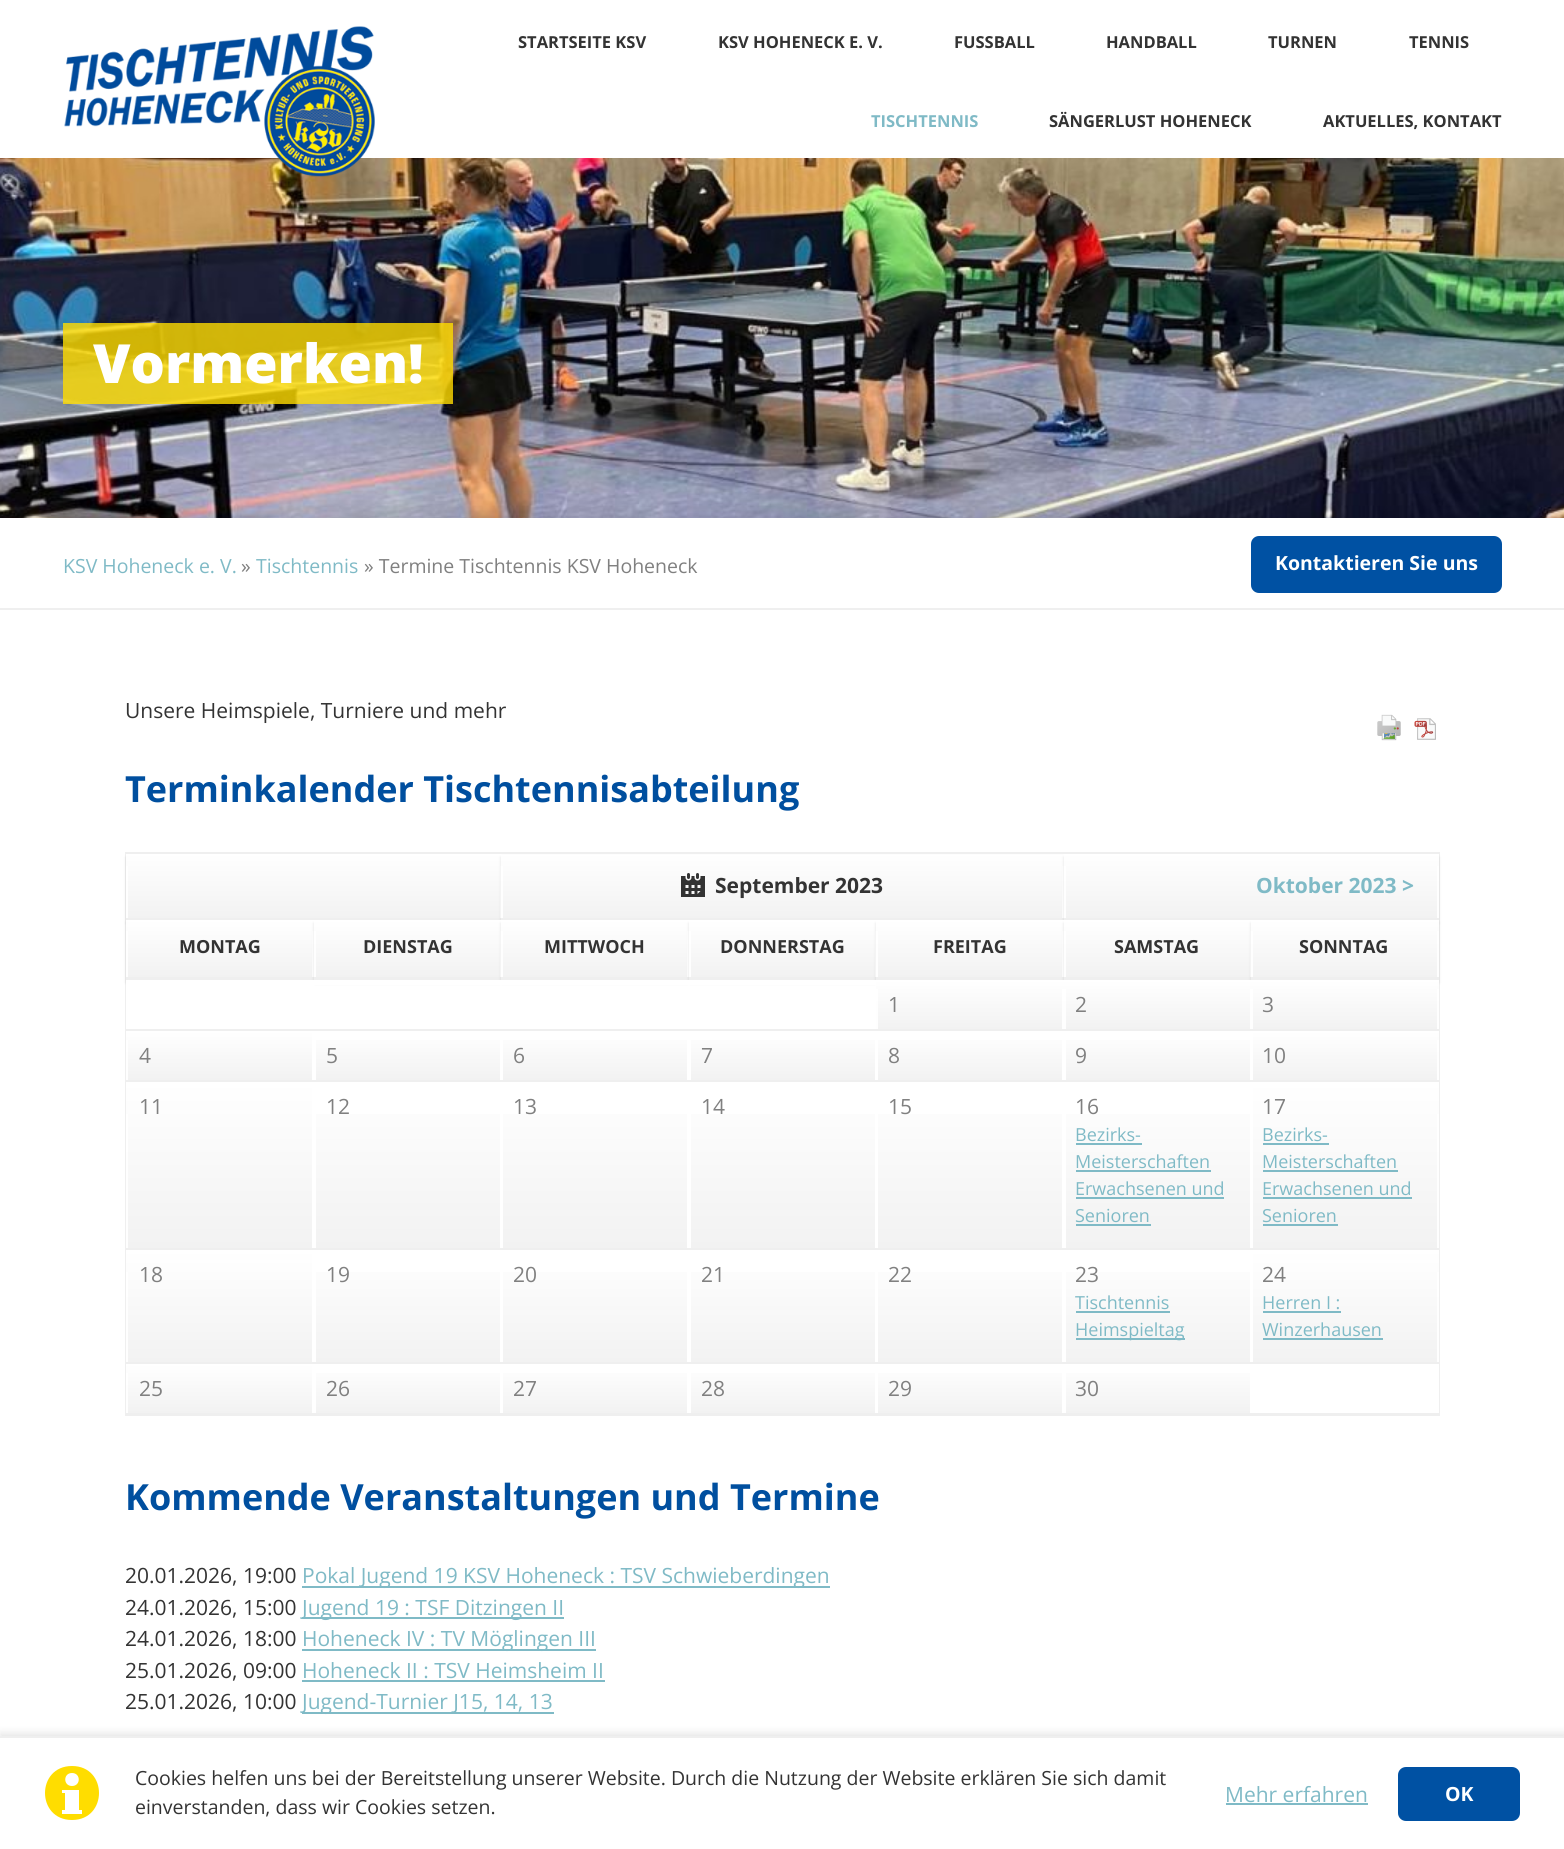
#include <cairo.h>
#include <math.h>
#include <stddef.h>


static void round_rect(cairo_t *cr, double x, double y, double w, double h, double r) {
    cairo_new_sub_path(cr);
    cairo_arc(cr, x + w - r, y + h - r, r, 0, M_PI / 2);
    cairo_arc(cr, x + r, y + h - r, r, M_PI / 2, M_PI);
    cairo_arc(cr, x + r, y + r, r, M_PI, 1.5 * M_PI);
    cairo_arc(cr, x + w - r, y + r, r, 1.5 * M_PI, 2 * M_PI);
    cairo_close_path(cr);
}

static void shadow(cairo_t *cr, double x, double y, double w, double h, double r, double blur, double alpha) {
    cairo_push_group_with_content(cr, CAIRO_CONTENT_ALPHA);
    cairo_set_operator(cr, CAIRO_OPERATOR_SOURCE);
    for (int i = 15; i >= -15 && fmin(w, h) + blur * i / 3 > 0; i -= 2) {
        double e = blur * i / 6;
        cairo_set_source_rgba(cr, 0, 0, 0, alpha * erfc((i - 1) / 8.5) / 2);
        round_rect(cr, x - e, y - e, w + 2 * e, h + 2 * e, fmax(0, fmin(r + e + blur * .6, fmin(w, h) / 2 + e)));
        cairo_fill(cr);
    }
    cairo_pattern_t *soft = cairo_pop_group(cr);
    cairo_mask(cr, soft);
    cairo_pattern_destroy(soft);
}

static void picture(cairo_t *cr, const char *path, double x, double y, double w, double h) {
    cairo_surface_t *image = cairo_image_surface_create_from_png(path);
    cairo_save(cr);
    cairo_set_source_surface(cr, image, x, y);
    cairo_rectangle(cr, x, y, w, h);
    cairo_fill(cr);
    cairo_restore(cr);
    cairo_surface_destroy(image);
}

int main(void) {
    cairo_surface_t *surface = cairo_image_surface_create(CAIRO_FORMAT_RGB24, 1564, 1849);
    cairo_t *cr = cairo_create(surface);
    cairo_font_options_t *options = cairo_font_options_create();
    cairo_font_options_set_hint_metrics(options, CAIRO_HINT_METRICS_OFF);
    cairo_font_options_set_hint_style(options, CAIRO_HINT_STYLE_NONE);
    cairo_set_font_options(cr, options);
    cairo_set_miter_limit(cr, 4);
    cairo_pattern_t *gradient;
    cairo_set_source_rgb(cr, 1, 1, 1);
    cairo_paint(cr);
    picture(cr, "img2.png", 0, 158, 1564, 360);
    picture(cr, "img1.png", 64, 26, 311, 151);
    cairo_select_font_face(cr, "Open Sans", CAIRO_FONT_SLANT_NORMAL, CAIRO_FONT_WEIGHT_BOLD);
    cairo_set_font_size(cr, 16.5);
    cairo_set_source_rgb(cr, 0.2, 0.2, 0.2);
    cairo_move_to(cr, 518, 48);
    cairo_show_text(cr, "STARTSEITE KSV");
    cairo_move_to(cr, 718, 48);
    cairo_show_text(cr, "KSV HOHENECK E. V.");
    cairo_move_to(cr, 954, 48);
    cairo_show_text(cr, "FUSSBALL");
    cairo_move_to(cr, 1106, 48);
    cairo_show_text(cr, "HANDBALL");
    cairo_move_to(cr, 1268, 48);
    cairo_show_text(cr, "TURNEN");
    cairo_move_to(cr, 1409, 48);
    cairo_show_text(cr, "TENNIS");
    cairo_set_source_rgb(cr, 0.498, 0.729, 0.776);
    cairo_move_to(cr, 871, 127);
    cairo_show_text(cr, "TISCHTENNIS");
    cairo_set_source_rgb(cr, 0.2, 0.2, 0.2);
    cairo_move_to(cr, 1049, 127);
    cairo_show_text(cr, "SÄNGERLUST HOHENECK");
    cairo_move_to(cr, 1323, 127);
    cairo_show_text(cr, "AKTUELLES, KONTAKT");
    cairo_set_source_rgba(cr, 1, 0.863, 0, 0.8);
    cairo_rectangle(cr, 63, 323, 390, 81);
    cairo_fill(cr);
    cairo_select_font_face(cr, "Open Sans ExtraBold", CAIRO_FONT_SLANT_NORMAL, CAIRO_FONT_WEIGHT_NORMAL);
    cairo_set_font_size(cr, 54);
    cairo_set_source_rgb(cr, 1, 1, 1);
    cairo_move_to(cr, 93, 383);
    cairo_show_text(cr, "Vormerken!");
    cairo_set_source_rgb(cr, 0, 0, 0);
    shadow(cr, 0, 518, 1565, 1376, 0, 15, 0.15);
    cairo_set_source_rgb(cr, 1, 1, 1);
    cairo_rectangle(cr, 0, 518, 1564, 1218);
    cairo_fill(cr);
    cairo_set_source_rgb(cr, 0.937, 0.937, 0.937);
    cairo_rectangle(cr, 0, 608, 1564, 2);
    cairo_fill(cr);
    cairo_select_font_face(cr, "Open Sans", CAIRO_FONT_SLANT_NORMAL, CAIRO_FONT_WEIGHT_NORMAL);
    cairo_set_font_size(cr, 19.5);
    cairo_set_source_rgb(cr, 0.498, 0.729, 0.776);
    cairo_move_to(cr, 63, 573);
    cairo_show_text(cr, "KSV Hoheneck e. V.");
    cairo_set_source_rgb(cr, 0.502, 0.502, 0.502);
    cairo_move_to(cr, 241, 573);
    cairo_show_text(cr, "»");
    cairo_set_source_rgb(cr, 0.498, 0.729, 0.776);
    cairo_move_to(cr, 256, 573);
    cairo_show_text(cr, "Tischtennis");
    cairo_set_source_rgb(cr, 0.502, 0.502, 0.502);
    cairo_move_to(cr, 364, 573);
    cairo_show_text(cr, "» Termine Tischtennis KSV Hoheneck");
    cairo_set_source_rgb(cr, 0, 0.318, 0.639);
    round_rect(cr, 1251, 536, 251, 57, 8);
    cairo_fill(cr);
    cairo_select_font_face(cr, "Open Sans", CAIRO_FONT_SLANT_NORMAL, CAIRO_FONT_WEIGHT_BOLD);
    cairo_set_source_rgb(cr, 1, 1, 1);
    cairo_move_to(cr, 1275, 570);
    cairo_show_text(cr, "Kontaktieren Sie uns");
    cairo_select_font_face(cr, "Open Sans", CAIRO_FONT_SLANT_NORMAL, CAIRO_FONT_WEIGHT_NORMAL);
    cairo_set_font_size(cr, 21);
    cairo_set_source_rgb(cr, 0.2, 0.2, 0.2);
    cairo_move_to(cr, 125, 718);
    cairo_show_text(cr, "Unsere Heimspiele, Turniere und mehr");
    picture(cr, "img3.png", 1377, 714, 24, 27);
    picture(cr, "img4.png", 1414, 718, 22, 22);
    cairo_select_font_face(cr, "Open Sans", CAIRO_FONT_SLANT_NORMAL, CAIRO_FONT_WEIGHT_BOLD);
    cairo_set_font_size(cr, 36);
    cairo_set_source_rgb(cr, 0, 0.31, 0.624);
    cairo_move_to(cr, 125, 802);
    cairo_show_text(cr, "Terminkalender Tischtennisabteilung");
    cairo_rectangle(cr, 126, 853, 1313, 562);
    cairo_set_source_rgb(cr, 0.937, 0.937, 0.937);
    cairo_stroke(cr);
    cairo_set_source_rgb(cr, 0, 0, 0);
    shadow(cr, 126, 857, 375, 66, 0, 1.5, 0.1);
    gradient = cairo_pattern_create_linear(314, 854, 314, 918);
    cairo_pattern_add_color_stop_rgba(gradient, 0, 1, 1, 1, 1);
    cairo_pattern_add_color_stop_rgba(gradient, 1, 0.949, 0.949, 0.949, 1);
    cairo_set_source(cr, gradient);
    cairo_pattern_destroy(gradient);
    cairo_rectangle(cr, 126, 854, 375, 64);
    cairo_fill(cr);
    cairo_set_source_rgba(cr, 1, 1, 1, 0.9);
    cairo_rectangle(cr, 500, 866, 1, 52);
    cairo_fill(cr);
    cairo_rectangle(cr, 126, 866, 2, 52);
    cairo_fill(cr);
    cairo_set_source_rgb(cr, 0.937, 0.937, 0.937);
    cairo_rectangle(cr, 126, 918, 375, 2);
    cairo_fill(cr);
    cairo_set_source_rgb(cr, 0, 0, 0);
    shadow(cr, 501, 857, 563, 66, 0, 1.5, 0.1);
    gradient = cairo_pattern_create_linear(782, 854, 782, 918);
    cairo_pattern_add_color_stop_rgba(gradient, 0, 1, 1, 1, 1);
    cairo_pattern_add_color_stop_rgba(gradient, 1, 0.949, 0.949, 0.949, 1);
    cairo_set_source(cr, gradient);
    cairo_pattern_destroy(gradient);
    cairo_rectangle(cr, 501, 855, 563, 63);
    cairo_fill(cr);
    cairo_set_source_rgba(cr, 1, 1, 1, 0.9);
    cairo_rectangle(cr, 1062, 866, 2, 52);
    cairo_fill(cr);
    cairo_rectangle(cr, 501, 866, 2, 52);
    cairo_fill(cr);
    cairo_set_source_rgb(cr, 0.937, 0.937, 0.937);
    cairo_rectangle(cr, 501, 918, 563, 2);
    cairo_fill(cr);
    picture(cr, "img5.png", 681, 873, 24, 24);
    cairo_set_font_size(cr, 21);
    cairo_set_source_rgb(cr, 0.2, 0.2, 0.2);
    cairo_move_to(cr, 715, 893);
    cairo_show_text(cr, "September 2023");
    cairo_set_source_rgb(cr, 0, 0, 0);
    shadow(cr, 1064, 857, 375, 66, 0, 1.5, 0.1);
    gradient = cairo_pattern_create_linear(1251, 854, 1251, 918);
    cairo_pattern_add_color_stop_rgba(gradient, 0, 1, 1, 1, 1);
    cairo_pattern_add_color_stop_rgba(gradient, 1, 0.949, 0.949, 0.949, 1);
    cairo_set_source(cr, gradient);
    cairo_pattern_destroy(gradient);
    cairo_rectangle(cr, 1064, 854, 375, 64);
    cairo_fill(cr);
    cairo_set_source_rgba(cr, 1, 1, 1, 0.9);
    cairo_rectangle(cr, 1437, 866, 2, 52);
    cairo_fill(cr);
    cairo_rectangle(cr, 1064, 866, 2, 52);
    cairo_fill(cr);
    cairo_set_source_rgb(cr, 0.937, 0.937, 0.937);
    cairo_rectangle(cr, 1064, 918, 375, 2);
    cairo_fill(cr);
    cairo_set_source_rgb(cr, 0.498, 0.729, 0.776);
    cairo_move_to(cr, 1256, 893);
    cairo_show_text(cr, "Oktober 2023 >");
    cairo_set_source_rgb(cr, 0, 0, 0);
    shadow(cr, 126, 923, 188, 60, 0, 1.5, 0.1);
    gradient = cairo_pattern_create_linear(220, 920, 220, 977);
    cairo_pattern_add_color_stop_rgba(gradient, 0, 1, 1, 1, 1);
    cairo_pattern_add_color_stop_rgba(gradient, 1, 0.949, 0.949, 0.949, 1);
    cairo_set_source(cr, gradient);
    cairo_pattern_destroy(gradient);
    cairo_rectangle(cr, 126, 920, 188, 57);
    cairo_fill(cr);
    cairo_set_source_rgba(cr, 1, 1, 1, 0.9);
    cairo_rectangle(cr, 312, 931, 2, 46);
    cairo_fill(cr);
    cairo_rectangle(cr, 126, 931, 2, 46);
    cairo_fill(cr);
    cairo_set_source_rgb(cr, 0.937, 0.937, 0.937);
    cairo_rectangle(cr, 126, 977, 188, 3);
    cairo_fill(cr);
    cairo_set_font_size(cr, 18);
    cairo_set_source_rgb(cr, 0.2, 0.2, 0.2);
    cairo_move_to(cr, 179, 953);
    cairo_show_text(cr, "MONTAG");
    cairo_set_source_rgb(cr, 0, 0, 0);
    shadow(cr, 314, 923, 187, 60, 0, 1.5, 0.1);
    gradient = cairo_pattern_create_linear(407, 920, 407, 977);
    cairo_pattern_add_color_stop_rgba(gradient, 0, 1, 1, 1, 1);
    cairo_pattern_add_color_stop_rgba(gradient, 1, 0.949, 0.949, 0.949, 1);
    cairo_set_source(cr, gradient);
    cairo_pattern_destroy(gradient);
    cairo_rectangle(cr, 314, 920, 187, 57);
    cairo_fill(cr);
    cairo_set_source_rgba(cr, 1, 1, 1, 0.9);
    cairo_rectangle(cr, 500, 931, 1, 46);
    cairo_fill(cr);
    cairo_rectangle(cr, 314, 931, 2, 46);
    cairo_fill(cr);
    cairo_set_source_rgb(cr, 0.937, 0.937, 0.937);
    cairo_rectangle(cr, 314, 977, 187, 3);
    cairo_fill(cr);
    cairo_set_source_rgb(cr, 0.2, 0.2, 0.2);
    cairo_move_to(cr, 363, 953);
    cairo_show_text(cr, "DIENSTAG");
    cairo_set_source_rgb(cr, 0, 0, 0);
    shadow(cr, 501, 923, 188, 60, 0, 1.5, 0.1);
    gradient = cairo_pattern_create_linear(595, 920, 595, 977);
    cairo_pattern_add_color_stop_rgba(gradient, 0, 1, 1, 1, 1);
    cairo_pattern_add_color_stop_rgba(gradient, 1, 0.949, 0.949, 0.949, 1);
    cairo_set_source(cr, gradient);
    cairo_pattern_destroy(gradient);
    cairo_rectangle(cr, 501, 920, 188, 57);
    cairo_fill(cr);
    cairo_set_source_rgba(cr, 1, 1, 1, 0.9);
    cairo_rectangle(cr, 687, 931, 2, 46);
    cairo_fill(cr);
    cairo_rectangle(cr, 501, 931, 2, 46);
    cairo_fill(cr);
    cairo_set_source_rgb(cr, 0.937, 0.937, 0.937);
    cairo_rectangle(cr, 501, 977, 188, 3);
    cairo_fill(cr);
    cairo_set_source_rgb(cr, 0.2, 0.2, 0.2);
    cairo_move_to(cr, 544, 953);
    cairo_show_text(cr, "MITTWOCH");
    cairo_set_source_rgb(cr, 0, 0, 0);
    shadow(cr, 689, 923, 187, 60, 0, 1.5, 0.1);
    gradient = cairo_pattern_create_linear(782, 920, 782, 977);
    cairo_pattern_add_color_stop_rgba(gradient, 0, 1, 1, 1, 1);
    cairo_pattern_add_color_stop_rgba(gradient, 1, 0.949, 0.949, 0.949, 1);
    cairo_set_source(cr, gradient);
    cairo_pattern_destroy(gradient);
    cairo_rectangle(cr, 689, 920, 187, 57);
    cairo_fill(cr);
    cairo_set_source_rgba(cr, 1, 1, 1, 0.9);
    cairo_rectangle(cr, 875, 931, 1, 46);
    cairo_fill(cr);
    cairo_rectangle(cr, 689, 931, 2, 46);
    cairo_fill(cr);
    cairo_set_source_rgb(cr, 0.937, 0.937, 0.937);
    cairo_rectangle(cr, 689, 977, 187, 3);
    cairo_fill(cr);
    cairo_set_source_rgb(cr, 0.2, 0.2, 0.2);
    cairo_move_to(cr, 720, 953);
    cairo_show_text(cr, "DONNERSTAG");
    cairo_set_source_rgb(cr, 0, 0, 0);
    shadow(cr, 876, 923, 188, 60, 0, 1.5, 0.1);
    gradient = cairo_pattern_create_linear(970, 920, 970, 977);
    cairo_pattern_add_color_stop_rgba(gradient, 0, 1, 1, 1, 1);
    cairo_pattern_add_color_stop_rgba(gradient, 1, 0.949, 0.949, 0.949, 1);
    cairo_set_source(cr, gradient);
    cairo_pattern_destroy(gradient);
    cairo_rectangle(cr, 876, 920, 188, 57);
    cairo_fill(cr);
    cairo_set_source_rgba(cr, 1, 1, 1, 0.9);
    cairo_rectangle(cr, 1062, 931, 2, 46);
    cairo_fill(cr);
    cairo_rectangle(cr, 876, 931, 2, 46);
    cairo_fill(cr);
    cairo_set_source_rgb(cr, 0.937, 0.937, 0.937);
    cairo_rectangle(cr, 876, 977, 188, 3);
    cairo_fill(cr);
    cairo_set_source_rgb(cr, 0.2, 0.2, 0.2);
    cairo_move_to(cr, 933, 953);
    cairo_show_text(cr, "FREITAG");
    cairo_set_source_rgb(cr, 0, 0, 0);
    shadow(cr, 1064, 923, 187, 60, 0, 1.5, 0.1);
    gradient = cairo_pattern_create_linear(1157, 920, 1157, 977);
    cairo_pattern_add_color_stop_rgba(gradient, 0, 1, 1, 1, 1);
    cairo_pattern_add_color_stop_rgba(gradient, 1, 0.949, 0.949, 0.949, 1);
    cairo_set_source(cr, gradient);
    cairo_pattern_destroy(gradient);
    cairo_rectangle(cr, 1064, 920, 187, 57);
    cairo_fill(cr);
    cairo_set_source_rgba(cr, 1, 1, 1, 0.9);
    cairo_rectangle(cr, 1250, 931, 1, 46);
    cairo_fill(cr);
    cairo_rectangle(cr, 1064, 931, 2, 46);
    cairo_fill(cr);
    cairo_set_source_rgb(cr, 0.937, 0.937, 0.937);
    cairo_rectangle(cr, 1064, 977, 187, 3);
    cairo_fill(cr);
    cairo_set_source_rgb(cr, 0.2, 0.2, 0.2);
    cairo_move_to(cr, 1114, 953);
    cairo_show_text(cr, "SAMSTAG");
    cairo_set_source_rgb(cr, 0, 0, 0);
    shadow(cr, 1251, 923, 188, 60, 0, 1.5, 0.1);
    gradient = cairo_pattern_create_linear(1345, 920, 1345, 977);
    cairo_pattern_add_color_stop_rgba(gradient, 0, 1, 1, 1, 1);
    cairo_pattern_add_color_stop_rgba(gradient, 1, 0.949, 0.949, 0.949, 1);
    cairo_set_source(cr, gradient);
    cairo_pattern_destroy(gradient);
    cairo_rectangle(cr, 1251, 920, 188, 57);
    cairo_fill(cr);
    cairo_set_source_rgba(cr, 1, 1, 1, 0.9);
    cairo_rectangle(cr, 1437, 931, 2, 46);
    cairo_fill(cr);
    cairo_rectangle(cr, 1251, 931, 2, 46);
    cairo_fill(cr);
    cairo_set_source_rgb(cr, 0.937, 0.937, 0.937);
    cairo_rectangle(cr, 1251, 977, 188, 3);
    cairo_fill(cr);
    cairo_set_source_rgb(cr, 0.2, 0.2, 0.2);
    cairo_move_to(cr, 1299, 953);
    cairo_show_text(cr, "SONNTAG");
    cairo_set_source_rgb(cr, 1, 1, 1);
    cairo_rectangle(cr, 126, 980, 188, 49);
    cairo_fill(cr);
    cairo_set_source_rgb(cr, 0.937, 0.937, 0.937);
    cairo_rectangle(cr, 126, 1029, 1313, 2);
    cairo_fill(cr);
    cairo_set_source_rgb(cr, 1, 1, 1);
    cairo_rectangle(cr, 314, 980, 562, 5);
    cairo_fill(cr);
    gradient = cairo_pattern_create_linear(970, 980, 970, 1029);
    cairo_pattern_add_color_stop_rgba(gradient, 0, 1, 1, 1, 1);
    cairo_pattern_add_color_stop_rgba(gradient, 1, 0.949, 0.949, 0.949, 1);
    cairo_set_source(cr, gradient);
    cairo_pattern_destroy(gradient);
    cairo_rectangle(cr, 876, 980, 188, 49);
    cairo_fill(cr);
    cairo_set_source_rgba(cr, 1, 1, 1, 0.9);
    cairo_rectangle(cr, 1062, 989, 2, 40);
    cairo_fill(cr);
    cairo_rectangle(cr, 876, 989, 2, 40);
    cairo_fill(cr);
    cairo_select_font_face(cr, "Open Sans", CAIRO_FONT_SLANT_NORMAL, CAIRO_FONT_WEIGHT_NORMAL);
    cairo_set_font_size(cr, 21);
    cairo_set_source_rgb(cr, 0.502, 0.502, 0.502);
    cairo_move_to(cr, 888, 1012);
    cairo_show_text(cr, "1");
    gradient = cairo_pattern_create_linear(1157, 980, 1157, 1029);
    cairo_pattern_add_color_stop_rgba(gradient, 0, 1, 1, 1, 1);
    cairo_pattern_add_color_stop_rgba(gradient, 1, 0.949, 0.949, 0.949, 1);
    cairo_set_source(cr, gradient);
    cairo_pattern_destroy(gradient);
    cairo_rectangle(cr, 1064, 980, 187, 49);
    cairo_fill(cr);
    cairo_set_source_rgba(cr, 1, 1, 1, 0.9);
    cairo_rectangle(cr, 1250, 989, 1, 40);
    cairo_fill(cr);
    cairo_rectangle(cr, 1064, 989, 2, 40);
    cairo_fill(cr);
    cairo_set_source_rgb(cr, 0.502, 0.502, 0.502);
    cairo_move_to(cr, 1075, 1012);
    cairo_show_text(cr, "2");
    gradient = cairo_pattern_create_linear(1345, 980, 1345, 1029);
    cairo_pattern_add_color_stop_rgba(gradient, 0, 1, 1, 1, 1);
    cairo_pattern_add_color_stop_rgba(gradient, 1, 0.949, 0.949, 0.949, 1);
    cairo_set_source(cr, gradient);
    cairo_pattern_destroy(gradient);
    cairo_rectangle(cr, 1251, 980, 188, 49);
    cairo_fill(cr);
    cairo_set_source_rgba(cr, 1, 1, 1, 0.9);
    cairo_rectangle(cr, 1437, 989, 2, 40);
    cairo_fill(cr);
    cairo_rectangle(cr, 1251, 989, 2, 40);
    cairo_fill(cr);
    cairo_set_source_rgb(cr, 0.502, 0.502, 0.502);
    cairo_move_to(cr, 1262, 1012);
    cairo_show_text(cr, "3");
    gradient = cairo_pattern_create_linear(220, 1031, 220, 1080);
    cairo_pattern_add_color_stop_rgba(gradient, 0, 1, 1, 1, 1);
    cairo_pattern_add_color_stop_rgba(gradient, 1, 0.949, 0.949, 0.949, 1);
    cairo_set_source(cr, gradient);
    cairo_pattern_destroy(gradient);
    cairo_rectangle(cr, 126, 1031, 186, 49);
    cairo_fill(cr);
    cairo_set_source_rgba(cr, 1, 1, 1, 0.9);
    cairo_rectangle(cr, 126, 1040, 2, 40);
    cairo_fill(cr);
    cairo_set_source_rgb(cr, 0.937, 0.937, 0.937);
    cairo_rectangle(cr, 126, 1080, 1313, 2);
    cairo_fill(cr);
    cairo_set_source_rgb(cr, 0.502, 0.502, 0.502);
    cairo_move_to(cr, 139, 1063);
    cairo_show_text(cr, "4");
    gradient = cairo_pattern_create_linear(407, 1031, 407, 1080);
    cairo_pattern_add_color_stop_rgba(gradient, 0, 1, 1, 1, 1);
    cairo_pattern_add_color_stop_rgba(gradient, 1, 0.949, 0.949, 0.949, 1);
    cairo_set_source(cr, gradient);
    cairo_pattern_destroy(gradient);
    cairo_rectangle(cr, 316, 1040, 184, 40);
    cairo_fill(cr);
    cairo_set_source_rgb(cr, 0.502, 0.502, 0.502);
    cairo_move_to(cr, 326, 1063);
    cairo_show_text(cr, "5");
    gradient = cairo_pattern_create_linear(595, 1031, 595, 1080);
    cairo_pattern_add_color_stop_rgba(gradient, 0, 1, 1, 1, 1);
    cairo_pattern_add_color_stop_rgba(gradient, 1, 0.949, 0.949, 0.949, 1);
    cairo_set_source(cr, gradient);
    cairo_pattern_destroy(gradient);
    cairo_rectangle(cr, 503, 1040, 184, 40);
    cairo_fill(cr);
    cairo_set_source_rgb(cr, 0.502, 0.502, 0.502);
    cairo_move_to(cr, 513, 1063);
    cairo_show_text(cr, "6");
    gradient = cairo_pattern_create_linear(782, 1031, 782, 1080);
    cairo_pattern_add_color_stop_rgba(gradient, 0, 1, 1, 1, 1);
    cairo_pattern_add_color_stop_rgba(gradient, 1, 0.949, 0.949, 0.949, 1);
    cairo_set_source(cr, gradient);
    cairo_pattern_destroy(gradient);
    cairo_rectangle(cr, 691, 1040, 184, 40);
    cairo_fill(cr);
    cairo_set_source_rgb(cr, 0.502, 0.502, 0.502);
    cairo_move_to(cr, 701, 1063);
    cairo_show_text(cr, "7");
    gradient = cairo_pattern_create_linear(970, 1031, 970, 1080);
    cairo_pattern_add_color_stop_rgba(gradient, 0, 1, 1, 1, 1);
    cairo_pattern_add_color_stop_rgba(gradient, 1, 0.949, 0.949, 0.949, 1);
    cairo_set_source(cr, gradient);
    cairo_pattern_destroy(gradient);
    cairo_rectangle(cr, 878, 1040, 184, 40);
    cairo_fill(cr);
    cairo_set_source_rgb(cr, 0.502, 0.502, 0.502);
    cairo_move_to(cr, 888, 1063);
    cairo_show_text(cr, "8");
    gradient = cairo_pattern_create_linear(1157, 1031, 1157, 1080);
    cairo_pattern_add_color_stop_rgba(gradient, 0, 1, 1, 1, 1);
    cairo_pattern_add_color_stop_rgba(gradient, 1, 0.949, 0.949, 0.949, 1);
    cairo_set_source(cr, gradient);
    cairo_pattern_destroy(gradient);
    cairo_rectangle(cr, 1066, 1040, 184, 40);
    cairo_fill(cr);
    cairo_set_source_rgb(cr, 0.502, 0.502, 0.502);
    cairo_move_to(cr, 1075, 1063);
    cairo_show_text(cr, "9");
    gradient = cairo_pattern_create_linear(1345, 1031, 1345, 1080);
    cairo_pattern_add_color_stop_rgba(gradient, 0, 1, 1, 1, 1);
    cairo_pattern_add_color_stop_rgba(gradient, 1, 0.949, 0.949, 0.949, 1);
    cairo_set_source(cr, gradient);
    cairo_pattern_destroy(gradient);
    cairo_rectangle(cr, 1253, 1031, 186, 49);
    cairo_fill(cr);
    cairo_set_source_rgba(cr, 1, 1, 1, 0.9);
    cairo_rectangle(cr, 1437, 1040, 2, 40);
    cairo_fill(cr);
    cairo_set_source_rgb(cr, 0.502, 0.502, 0.502);
    cairo_move_to(cr, 1262, 1063);
    cairo_show_text(cr, "10");
    gradient = cairo_pattern_create_linear(220, 1082, 220, 1248);
    cairo_pattern_add_color_stop_rgba(gradient, 0, 1, 1, 1, 1);
    cairo_pattern_add_color_stop_rgba(gradient, 1, 0.949, 0.949, 0.949, 1);
    cairo_set_source(cr, gradient);
    cairo_pattern_destroy(gradient);
    cairo_rectangle(cr, 126, 1082, 186, 166);
    cairo_fill(cr);
    cairo_set_source_rgba(cr, 1, 1, 1, 0.9);
    cairo_rectangle(cr, 126, 1114, 2, 134);
    cairo_fill(cr);
    cairo_set_source_rgb(cr, 0.937, 0.937, 0.937);
    cairo_rectangle(cr, 126, 1248, 1313, 2);
    cairo_fill(cr);
    cairo_set_source_rgb(cr, 0.502, 0.502, 0.502);
    cairo_move_to(cr, 139, 1114);
    cairo_show_text(cr, "11");
    gradient = cairo_pattern_create_linear(407, 1082, 407, 1248);
    cairo_pattern_add_color_stop_rgba(gradient, 0, 1, 1, 1, 1);
    cairo_pattern_add_color_stop_rgba(gradient, 1, 0.949, 0.949, 0.949, 1);
    cairo_set_source(cr, gradient);
    cairo_pattern_destroy(gradient);
    cairo_rectangle(cr, 316, 1114, 184, 134);
    cairo_fill(cr);
    cairo_set_source_rgb(cr, 0.502, 0.502, 0.502);
    cairo_move_to(cr, 326, 1114);
    cairo_show_text(cr, "12");
    gradient = cairo_pattern_create_linear(595, 1082, 595, 1248);
    cairo_pattern_add_color_stop_rgba(gradient, 0, 1, 1, 1, 1);
    cairo_pattern_add_color_stop_rgba(gradient, 1, 0.949, 0.949, 0.949, 1);
    cairo_set_source(cr, gradient);
    cairo_pattern_destroy(gradient);
    cairo_rectangle(cr, 503, 1114, 184, 134);
    cairo_fill(cr);
    cairo_set_source_rgb(cr, 0.502, 0.502, 0.502);
    cairo_move_to(cr, 513, 1114);
    cairo_show_text(cr, "13");
    gradient = cairo_pattern_create_linear(782, 1082, 782, 1248);
    cairo_pattern_add_color_stop_rgba(gradient, 0, 1, 1, 1, 1);
    cairo_pattern_add_color_stop_rgba(gradient, 1, 0.949, 0.949, 0.949, 1);
    cairo_set_source(cr, gradient);
    cairo_pattern_destroy(gradient);
    cairo_rectangle(cr, 691, 1114, 184, 134);
    cairo_fill(cr);
    cairo_set_source_rgb(cr, 0.502, 0.502, 0.502);
    cairo_move_to(cr, 701, 1114);
    cairo_show_text(cr, "14");
    gradient = cairo_pattern_create_linear(970, 1082, 970, 1248);
    cairo_pattern_add_color_stop_rgba(gradient, 0, 1, 1, 1, 1);
    cairo_pattern_add_color_stop_rgba(gradient, 1, 0.949, 0.949, 0.949, 1);
    cairo_set_source(cr, gradient);
    cairo_pattern_destroy(gradient);
    cairo_rectangle(cr, 878, 1114, 184, 134);
    cairo_fill(cr);
    cairo_set_source_rgb(cr, 0.502, 0.502, 0.502);
    cairo_move_to(cr, 888, 1114);
    cairo_show_text(cr, "15");
    gradient = cairo_pattern_create_linear(1157, 1082, 1157, 1248);
    cairo_pattern_add_color_stop_rgba(gradient, 0, 1, 1, 1, 1);
    cairo_pattern_add_color_stop_rgba(gradient, 1, 0.949, 0.949, 0.949, 1);
    cairo_set_source(cr, gradient);
    cairo_pattern_destroy(gradient);
    cairo_rectangle(cr, 1066, 1114, 184, 134);
    cairo_fill(cr);
    cairo_set_source_rgb(cr, 0.502, 0.502, 0.502);
    cairo_move_to(cr, 1075, 1114);
    cairo_show_text(cr, "16");
    cairo_set_font_size(cr, 18);
    cairo_set_source_rgb(cr, 0.498, 0.729, 0.776);
    cairo_move_to(cr, 1075, 1141);
    cairo_show_text(cr, "Bezirks-");
    cairo_rectangle(cr, 1076, 1143, 66, 2);
    cairo_fill(cr);
    cairo_move_to(cr, 1075, 1168);
    cairo_show_text(cr, "Meisterschaften");
    cairo_rectangle(cr, 1076, 1170, 135, 2);
    cairo_fill(cr);
    cairo_move_to(cr, 1075, 1195);
    cairo_show_text(cr, "Erwachsenen und");
    cairo_rectangle(cr, 1076, 1197, 148, 2);
    cairo_fill(cr);
    cairo_move_to(cr, 1075, 1222);
    cairo_show_text(cr, "Senioren");
    cairo_rectangle(cr, 1076, 1224, 75, 2);
    cairo_fill(cr);
    gradient = cairo_pattern_create_linear(1345, 1082, 1345, 1248);
    cairo_pattern_add_color_stop_rgba(gradient, 0, 1, 1, 1, 1);
    cairo_pattern_add_color_stop_rgba(gradient, 1, 0.949, 0.949, 0.949, 1);
    cairo_set_source(cr, gradient);
    cairo_pattern_destroy(gradient);
    cairo_rectangle(cr, 1253, 1082, 186, 166);
    cairo_fill(cr);
    cairo_set_source_rgba(cr, 1, 1, 1, 0.9);
    cairo_rectangle(cr, 1437, 1114, 2, 134);
    cairo_fill(cr);
    cairo_set_font_size(cr, 21);
    cairo_set_source_rgb(cr, 0.502, 0.502, 0.502);
    cairo_move_to(cr, 1262, 1114);
    cairo_show_text(cr, "17");
    cairo_set_font_size(cr, 18);
    cairo_set_source_rgb(cr, 0.498, 0.729, 0.776);
    cairo_move_to(cr, 1262, 1141);
    cairo_show_text(cr, "Bezirks-");
    cairo_rectangle(cr, 1263, 1143, 66, 2);
    cairo_fill(cr);
    cairo_move_to(cr, 1262, 1168);
    cairo_show_text(cr, "Meisterschaften");
    cairo_rectangle(cr, 1263, 1170, 135, 2);
    cairo_fill(cr);
    cairo_move_to(cr, 1262, 1195);
    cairo_show_text(cr, "Erwachsenen und");
    cairo_rectangle(cr, 1263, 1197, 149, 2);
    cairo_fill(cr);
    cairo_move_to(cr, 1262, 1222);
    cairo_show_text(cr, "Senioren");
    cairo_rectangle(cr, 1263, 1224, 75, 2);
    cairo_fill(cr);
    gradient = cairo_pattern_create_linear(220, 1250, 220, 1362);
    cairo_pattern_add_color_stop_rgba(gradient, 0, 1, 1, 1, 1);
    cairo_pattern_add_color_stop_rgba(gradient, 1, 0.949, 0.949, 0.949, 1);
    cairo_set_source(cr, gradient);
    cairo_pattern_destroy(gradient);
    cairo_rectangle(cr, 126, 1250, 186, 112);
    cairo_fill(cr);
    cairo_set_source_rgba(cr, 1, 1, 1, 0.9);
    cairo_rectangle(cr, 126, 1272, 2, 90);
    cairo_fill(cr);
    cairo_set_source_rgb(cr, 0.937, 0.937, 0.937);
    cairo_rectangle(cr, 126, 1362, 1313, 2);
    cairo_fill(cr);
    cairo_set_font_size(cr, 21);
    cairo_set_source_rgb(cr, 0.502, 0.502, 0.502);
    cairo_move_to(cr, 139, 1282);
    cairo_show_text(cr, "18");
    gradient = cairo_pattern_create_linear(407, 1250, 407, 1362);
    cairo_pattern_add_color_stop_rgba(gradient, 0, 1, 1, 1, 1);
    cairo_pattern_add_color_stop_rgba(gradient, 1, 0.949, 0.949, 0.949, 1);
    cairo_set_source(cr, gradient);
    cairo_pattern_destroy(gradient);
    cairo_rectangle(cr, 316, 1272, 184, 90);
    cairo_fill(cr);
    cairo_set_source_rgb(cr, 0.502, 0.502, 0.502);
    cairo_move_to(cr, 326, 1282);
    cairo_show_text(cr, "19");
    gradient = cairo_pattern_create_linear(595, 1250, 595, 1362);
    cairo_pattern_add_color_stop_rgba(gradient, 0, 1, 1, 1, 1);
    cairo_pattern_add_color_stop_rgba(gradient, 1, 0.949, 0.949, 0.949, 1);
    cairo_set_source(cr, gradient);
    cairo_pattern_destroy(gradient);
    cairo_rectangle(cr, 503, 1272, 184, 90);
    cairo_fill(cr);
    cairo_set_source_rgb(cr, 0.502, 0.502, 0.502);
    cairo_move_to(cr, 513, 1282);
    cairo_show_text(cr, "20");
    gradient = cairo_pattern_create_linear(782, 1250, 782, 1362);
    cairo_pattern_add_color_stop_rgba(gradient, 0, 1, 1, 1, 1);
    cairo_pattern_add_color_stop_rgba(gradient, 1, 0.949, 0.949, 0.949, 1);
    cairo_set_source(cr, gradient);
    cairo_pattern_destroy(gradient);
    cairo_rectangle(cr, 691, 1272, 184, 90);
    cairo_fill(cr);
    cairo_set_source_rgb(cr, 0.502, 0.502, 0.502);
    cairo_move_to(cr, 701, 1282);
    cairo_show_text(cr, "21");
    gradient = cairo_pattern_create_linear(970, 1250, 970, 1362);
    cairo_pattern_add_color_stop_rgba(gradient, 0, 1, 1, 1, 1);
    cairo_pattern_add_color_stop_rgba(gradient, 1, 0.949, 0.949, 0.949, 1);
    cairo_set_source(cr, gradient);
    cairo_pattern_destroy(gradient);
    cairo_rectangle(cr, 878, 1272, 184, 90);
    cairo_fill(cr);
    cairo_set_source_rgb(cr, 0.502, 0.502, 0.502);
    cairo_move_to(cr, 888, 1282);
    cairo_show_text(cr, "22");
    gradient = cairo_pattern_create_linear(1157, 1250, 1157, 1362);
    cairo_pattern_add_color_stop_rgba(gradient, 0, 1, 1, 1, 1);
    cairo_pattern_add_color_stop_rgba(gradient, 1, 0.949, 0.949, 0.949, 1);
    cairo_set_source(cr, gradient);
    cairo_pattern_destroy(gradient);
    cairo_rectangle(cr, 1066, 1272, 184, 90);
    cairo_fill(cr);
    cairo_set_source_rgb(cr, 0.502, 0.502, 0.502);
    cairo_move_to(cr, 1075, 1282);
    cairo_show_text(cr, "23");
    cairo_set_font_size(cr, 18);
    cairo_set_source_rgb(cr, 0.498, 0.729, 0.776);
    cairo_move_to(cr, 1075, 1309);
    cairo_show_text(cr, "Tischtennis");
    cairo_rectangle(cr, 1076, 1311, 94, 2);
    cairo_fill(cr);
    cairo_rectangle(cr, 1076, 1338, 109, 2);
    cairo_fill(cr);
    cairo_move_to(cr, 1075, 1336);
    cairo_show_text(cr, "Heimspieltag");
    gradient = cairo_pattern_create_linear(1345, 1250, 1345, 1362);
    cairo_pattern_add_color_stop_rgba(gradient, 0, 1, 1, 1, 1);
    cairo_pattern_add_color_stop_rgba(gradient, 1, 0.949, 0.949, 0.949, 1);
    cairo_set_source(cr, gradient);
    cairo_pattern_destroy(gradient);
    cairo_rectangle(cr, 1253, 1250, 186, 112);
    cairo_fill(cr);
    cairo_set_source_rgba(cr, 1, 1, 1, 0.9);
    cairo_rectangle(cr, 1437, 1272, 2, 90);
    cairo_fill(cr);
    cairo_set_font_size(cr, 21);
    cairo_set_source_rgb(cr, 0.502, 0.502, 0.502);
    cairo_move_to(cr, 1262, 1282);
    cairo_show_text(cr, "24");
    cairo_set_font_size(cr, 18);
    cairo_set_source_rgb(cr, 0.498, 0.729, 0.776);
    cairo_move_to(cr, 1262, 1309);
    cairo_show_text(cr, "Herren I :");
    cairo_rectangle(cr, 1263, 1311, 78, 2);
    cairo_fill(cr);
    cairo_move_to(cr, 1262, 1336);
    cairo_show_text(cr, "Winzerhausen");
    cairo_rectangle(cr, 1263, 1338, 120, 2);
    cairo_fill(cr);
    gradient = cairo_pattern_create_linear(220, 1364, 220, 1413);
    cairo_pattern_add_color_stop_rgba(gradient, 0, 1, 1, 1, 1);
    cairo_pattern_add_color_stop_rgba(gradient, 1, 0.949, 0.949, 0.949, 1);
    cairo_set_source(cr, gradient);
    cairo_pattern_destroy(gradient);
    cairo_rectangle(cr, 126, 1364, 186, 49);
    cairo_fill(cr);
    cairo_set_source_rgba(cr, 1, 1, 1, 0.9);
    cairo_rectangle(cr, 126, 1373, 2, 40);
    cairo_fill(cr);
    cairo_set_source_rgb(cr, 0.937, 0.937, 0.937);
    cairo_rectangle(cr, 126, 1413, 1313, 1);
    cairo_fill(cr);
    cairo_set_font_size(cr, 21);
    cairo_set_source_rgb(cr, 0.502, 0.502, 0.502);
    cairo_move_to(cr, 139, 1396);
    cairo_show_text(cr, "25");
    gradient = cairo_pattern_create_linear(407, 1364, 407, 1413);
    cairo_pattern_add_color_stop_rgba(gradient, 0, 1, 1, 1, 1);
    cairo_pattern_add_color_stop_rgba(gradient, 1, 0.949, 0.949, 0.949, 1);
    cairo_set_source(cr, gradient);
    cairo_pattern_destroy(gradient);
    cairo_rectangle(cr, 316, 1373, 184, 40);
    cairo_fill(cr);
    cairo_set_source_rgb(cr, 0.502, 0.502, 0.502);
    cairo_move_to(cr, 326, 1396);
    cairo_show_text(cr, "26");
    gradient = cairo_pattern_create_linear(595, 1364, 595, 1413);
    cairo_pattern_add_color_stop_rgba(gradient, 0, 1, 1, 1, 1);
    cairo_pattern_add_color_stop_rgba(gradient, 1, 0.949, 0.949, 0.949, 1);
    cairo_set_source(cr, gradient);
    cairo_pattern_destroy(gradient);
    cairo_rectangle(cr, 503, 1373, 184, 40);
    cairo_fill(cr);
    cairo_set_source_rgb(cr, 0.502, 0.502, 0.502);
    cairo_move_to(cr, 513, 1396);
    cairo_show_text(cr, "27");
    gradient = cairo_pattern_create_linear(782, 1364, 782, 1413);
    cairo_pattern_add_color_stop_rgba(gradient, 0, 1, 1, 1, 1);
    cairo_pattern_add_color_stop_rgba(gradient, 1, 0.949, 0.949, 0.949, 1);
    cairo_set_source(cr, gradient);
    cairo_pattern_destroy(gradient);
    cairo_rectangle(cr, 691, 1373, 184, 40);
    cairo_fill(cr);
    cairo_set_source_rgb(cr, 0.502, 0.502, 0.502);
    cairo_move_to(cr, 701, 1396);
    cairo_show_text(cr, "28");
    gradient = cairo_pattern_create_linear(970, 1364, 970, 1413);
    cairo_pattern_add_color_stop_rgba(gradient, 0, 1, 1, 1, 1);
    cairo_pattern_add_color_stop_rgba(gradient, 1, 0.949, 0.949, 0.949, 1);
    cairo_set_source(cr, gradient);
    cairo_pattern_destroy(gradient);
    cairo_rectangle(cr, 878, 1373, 184, 40);
    cairo_fill(cr);
    cairo_set_source_rgb(cr, 0.502, 0.502, 0.502);
    cairo_move_to(cr, 888, 1396);
    cairo_show_text(cr, "29");
    gradient = cairo_pattern_create_linear(1157, 1364, 1157, 1413);
    cairo_pattern_add_color_stop_rgba(gradient, 0, 1, 1, 1, 1);
    cairo_pattern_add_color_stop_rgba(gradient, 1, 0.949, 0.949, 0.949, 1);
    cairo_set_source(cr, gradient);
    cairo_pattern_destroy(gradient);
    cairo_rectangle(cr, 1066, 1373, 184, 40);
    cairo_fill(cr);
    cairo_set_source_rgb(cr, 0.502, 0.502, 0.502);
    cairo_move_to(cr, 1075, 1396);
    cairo_show_text(cr, "30");
    cairo_set_source_rgb(cr, 1, 1, 1);
    cairo_rectangle(cr, 1438, 1364, 1, 49);
    cairo_fill(cr);
    cairo_select_font_face(cr, "Open Sans", CAIRO_FONT_SLANT_NORMAL, CAIRO_FONT_WEIGHT_BOLD);
    cairo_set_font_size(cr, 36);
    cairo_set_source_rgb(cr, 0, 0.31, 0.624);
    cairo_move_to(cr, 125, 1510);
    cairo_show_text(cr, "Kommende Veranstaltungen und Termine");
    cairo_select_font_face(cr, "Open Sans", CAIRO_FONT_SLANT_NORMAL, CAIRO_FONT_WEIGHT_NORMAL);
    cairo_set_font_size(cr, 21);
    cairo_set_source_rgb(cr, 0.2, 0.2, 0.2);
    cairo_move_to(cr, 125, 1583);
    cairo_show_text(cr, "20.01.2026, 19:00");
    cairo_set_source_rgb(cr, 0.498, 0.729, 0.776);
    cairo_rectangle(cr, 302, 1586, 528, 2);
    cairo_fill(cr);
    cairo_move_to(cr, 302, 1583);
    cairo_show_text(cr, "Pokal Jugend 19 KSV Hoheneck : TSV Schwieberdingen");
    cairo_set_source_rgb(cr, 0.2, 0.2, 0.2);
    cairo_move_to(cr, 125, 1615);
    cairo_show_text(cr, "24.01.2026, 15:00");
    cairo_set_source_rgb(cr, 0.498, 0.729, 0.776);
    cairo_rectangle(cr, 302, 1617, 262, 2);
    cairo_fill(cr);
    cairo_move_to(cr, 302, 1615);
    cairo_show_text(cr, "Jugend 19 : TSF Ditzingen II");
    cairo_set_source_rgb(cr, 0.2, 0.2, 0.2);
    cairo_move_to(cr, 125, 1646);
    cairo_show_text(cr, "24.01.2026, 18:00");
    cairo_set_source_rgb(cr, 0.498, 0.729, 0.776);
    cairo_rectangle(cr, 302, 1649, 294, 2);
    cairo_fill(cr);
    cairo_move_to(cr, 302, 1646);
    cairo_show_text(cr, "Hoheneck IV : TV Möglingen III");
    cairo_set_source_rgb(cr, 0.2, 0.2, 0.2);
    cairo_move_to(cr, 125, 1678);
    cairo_show_text(cr, "25.01.2026, 09:00");
    cairo_set_source_rgb(cr, 0.498, 0.729, 0.776);
    cairo_move_to(cr, 302, 1678);
    cairo_show_text(cr, "Hoheneck II : TSV Heimsheim II");
    cairo_rectangle(cr, 302, 1680, 303, 2);
    cairo_fill(cr);
    cairo_set_source_rgb(cr, 0.2, 0.2, 0.2);
    cairo_move_to(cr, 125, 1709);
    cairo_show_text(cr, "25.01.2026, 10:00");
    cairo_set_source_rgb(cr, 0.498, 0.729, 0.776);
    cairo_rectangle(cr, 302, 1712, 252, 2);
    cairo_fill(cr);
    cairo_move_to(cr, 302, 1709);
    cairo_show_text(cr, "Jugend-Turnier J15, 14, 13");
    cairo_set_source_rgb(cr, 0, 0, 0);
    shadow(cr, 0, 1733, 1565, 114, 0, 4, 0.1);
    cairo_set_source_rgb(cr, 1, 1, 1);
    cairo_rectangle(cr, 0, 1738, 1564, 111);
    cairo_fill(cr);
    cairo_set_source_rgb(cr, 0.937, 0.937, 0.937);
    cairo_rectangle(cr, 0, 1736, 1564, 2);
    cairo_fill(cr);
    cairo_set_source_rgb(cr, 1, 0.867, 0);
    cairo_new_path(cr);
    cairo_move_to(cr, 72, 1766);
    cairo_curve_to(cr, 36, 1766, 36, 1820, 72, 1820);
    cairo_curve_to(cr, 108, 1820, 108, 1766, 72, 1766);
    cairo_close_path(cr);
    cairo_move_to(cr, 72, 1773);
    cairo_curve_to(cr, 81, 1773, 81, 1786, 72, 1786);
    cairo_curve_to(cr, 63, 1786, 63, 1773, 72, 1773);
    cairo_close_path(cr);
    cairo_move_to(cr, 82, 1814);
    cairo_line_to(cr, 62, 1814);
    cairo_line_to(cr, 62, 1810);
    cairo_line_to(cr, 65, 1810);
    cairo_line_to(cr, 65, 1793);
    cairo_line_to(cr, 62, 1793);
    cairo_line_to(cr, 62, 1790);
    cairo_line_to(cr, 79, 1790);
    cairo_line_to(cr, 79, 1810);
    cairo_line_to(cr, 82, 1810);
    cairo_close_path(cr);
    cairo_fill(cr);
    cairo_set_font_size(cr, 19.5);
    cairo_set_source_rgb(cr, 0.2, 0.2, 0.2);
    cairo_move_to(cr, 135, 1785);
    cairo_show_text(cr, "Cookies helfen uns bei der Bereitstellung unserer Website. Durch die Nutzung der Website erklären Sie sich damit");
    cairo_move_to(cr, 135, 1814);
    cairo_show_text(cr, "einverstanden, dass wir Cookies setzen.");
    cairo_set_font_size(cr, 21);
    cairo_set_source_rgb(cr, 0.498, 0.729, 0.776);
    cairo_move_to(cr, 1225, 1802);
    cairo_show_text(cr, "Mehr erfahren");
    cairo_rectangle(cr, 1226, 1803, 142, 2);
    cairo_fill(cr);
    cairo_set_source_rgb(cr, 0, 0.318, 0.639);
    round_rect(cr, 1398, 1767, 122, 54, 8);
    cairo_fill(cr);
    cairo_select_font_face(cr, "Open Sans", CAIRO_FONT_SLANT_NORMAL, CAIRO_FONT_WEIGHT_BOLD);
    cairo_set_font_size(cr, 19.5);
    cairo_set_source_rgb(cr, 1, 1, 1);
    cairo_move_to(cr, 1445, 1801);
    cairo_show_text(cr, "OK");
    cairo_surface_write_to_png(surface, "page.png");
    cairo_font_options_destroy(options);
    cairo_destroy(cr);
    cairo_surface_destroy(surface);
    return 0;
}
